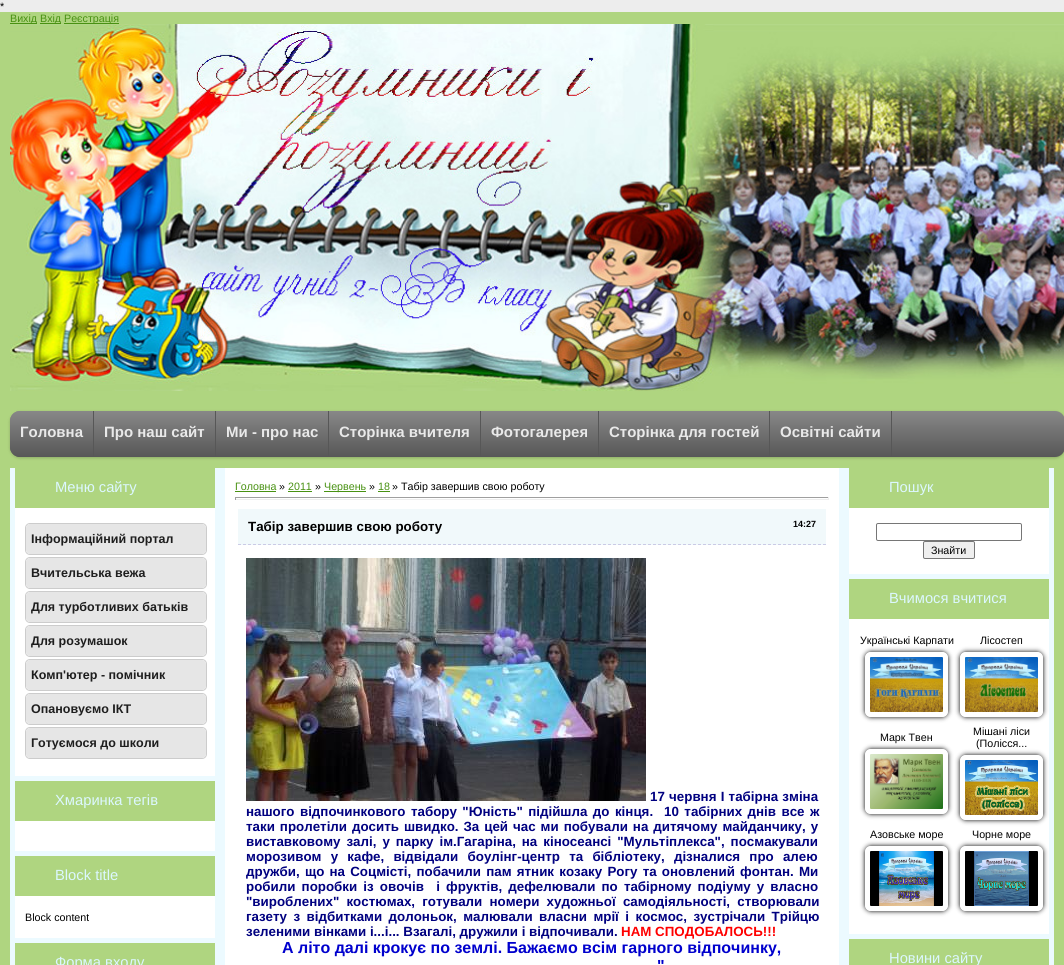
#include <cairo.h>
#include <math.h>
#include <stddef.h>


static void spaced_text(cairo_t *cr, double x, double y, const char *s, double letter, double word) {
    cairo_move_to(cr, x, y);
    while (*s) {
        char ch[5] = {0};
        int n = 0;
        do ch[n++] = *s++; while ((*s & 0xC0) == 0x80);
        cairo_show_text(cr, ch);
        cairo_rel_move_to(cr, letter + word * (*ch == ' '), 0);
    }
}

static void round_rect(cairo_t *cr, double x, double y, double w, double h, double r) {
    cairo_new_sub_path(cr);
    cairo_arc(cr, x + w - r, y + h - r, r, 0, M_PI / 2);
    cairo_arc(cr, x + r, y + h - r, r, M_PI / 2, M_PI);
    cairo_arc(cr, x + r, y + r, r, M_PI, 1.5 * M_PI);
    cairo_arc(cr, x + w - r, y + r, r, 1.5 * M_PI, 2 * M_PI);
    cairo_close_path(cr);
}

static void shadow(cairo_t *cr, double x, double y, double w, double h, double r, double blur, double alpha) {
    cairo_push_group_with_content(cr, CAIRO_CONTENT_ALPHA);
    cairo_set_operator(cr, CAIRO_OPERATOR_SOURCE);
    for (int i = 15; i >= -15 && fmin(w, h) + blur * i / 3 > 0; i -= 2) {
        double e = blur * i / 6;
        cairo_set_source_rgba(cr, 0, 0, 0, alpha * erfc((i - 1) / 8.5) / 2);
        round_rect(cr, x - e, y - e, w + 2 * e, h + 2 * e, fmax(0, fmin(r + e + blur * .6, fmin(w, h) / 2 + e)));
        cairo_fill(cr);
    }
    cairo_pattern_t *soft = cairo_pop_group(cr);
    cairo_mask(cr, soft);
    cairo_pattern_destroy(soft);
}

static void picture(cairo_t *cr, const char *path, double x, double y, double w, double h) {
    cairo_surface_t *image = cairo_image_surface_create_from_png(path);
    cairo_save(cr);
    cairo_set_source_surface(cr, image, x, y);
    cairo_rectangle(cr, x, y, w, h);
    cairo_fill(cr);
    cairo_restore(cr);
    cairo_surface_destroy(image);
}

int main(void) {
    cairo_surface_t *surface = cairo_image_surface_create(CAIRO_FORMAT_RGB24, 1064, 965);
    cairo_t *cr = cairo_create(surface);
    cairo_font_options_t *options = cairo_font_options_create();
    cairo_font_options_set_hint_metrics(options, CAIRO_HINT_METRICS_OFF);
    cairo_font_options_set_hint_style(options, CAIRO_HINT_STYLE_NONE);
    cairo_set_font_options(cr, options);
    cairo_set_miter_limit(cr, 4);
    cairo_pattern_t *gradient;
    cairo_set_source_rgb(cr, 0.929, 0.929, 0.929);
    cairo_paint(cr);
    cairo_select_font_face(cr, "Liberation Sans", CAIRO_FONT_SLANT_NORMAL, CAIRO_FONT_WEIGHT_NORMAL);
    cairo_set_font_size(cr, 10.7);
    cairo_set_source_rgb(cr, 0, 0, 0);
    cairo_move_to(cr, 0, 10);
    cairo_show_text(cr, "*");
    cairo_set_source_rgb(cr, 0.686, 0.835, 0.502);
    cairo_rectangle(cr, 0, 12, 1064, 953);
    cairo_fill(cr);
    cairo_set_source_rgb(cr, 0.282, 0.569, 0.071);
    cairo_rectangle(cr, 10, 23, 27, 1);
    cairo_fill(cr);
    cairo_move_to(cr, 10, 22);
    cairo_show_text(cr, "Вихід");
    cairo_rectangle(cr, 40, 23, 21, 1);
    cairo_fill(cr);
    cairo_move_to(cr, 40, 22);
    cairo_show_text(cr, "Вхід");
    cairo_rectangle(cr, 64, 23, 55, 1);
    cairo_fill(cr);
    cairo_move_to(cr, 64, 22);
    cairo_show_text(cr, "Реєстрація");
    picture(cr, "img1.png", 10, 24, 1054, 367);
    cairo_set_source_rgb(cr, 0, 0, 0);
    shadow(cr, 10, 412, 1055, 46, 10, 1.5, 0.2);
    gradient = cairo_pattern_create_linear(537, 411, 537, 457);
    cairo_pattern_add_color_stop_rgba(gradient, 0, 0.533, 0.533, 0.533, 1);
    cairo_pattern_add_color_stop_rgba(gradient, 1, 0.341, 0.341, 0.341, 1);
    cairo_set_source(cr, gradient);
    cairo_pattern_destroy(gradient);
    round_rect(cr, 10, 411, 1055, 46, 10);
    cairo_fill(cr);
    gradient = cairo_pattern_create_linear(52, 411, 52, 457);
    cairo_pattern_add_color_stop_rgba(gradient, 0, 0.533, 0.533, 0.533, 1);
    cairo_pattern_add_color_stop_rgba(gradient, 1, 0.341, 0.341, 0.341, 1);
    cairo_set_source(cr, gradient);
    cairo_pattern_destroy(gradient);
    cairo_new_path(cr);
    cairo_move_to(cr, 20, 411);
    cairo_line_to(cr, 94, 411);
    cairo_line_to(cr, 94, 457);
    cairo_line_to(cr, 20, 457);
    cairo_curve_to(cr, 14.5, 457, 10, 452.5, 10, 447);
    cairo_line_to(cr, 10, 421);
    cairo_curve_to(cr, 10, 415.5, 14.5, 411, 20, 411);
    cairo_close_path(cr);
    cairo_fill(cr);
    cairo_set_source_rgb(cr, 0.341, 0.341, 0.341);
    cairo_rectangle(cr, 93, 411, 1, 46);
    cairo_fill(cr);
    cairo_select_font_face(cr, "Liberation Sans", CAIRO_FONT_SLANT_NORMAL, CAIRO_FONT_WEIGHT_BOLD);
    cairo_set_font_size(cr, 15);
    cairo_set_source_rgb(cr, 0.914, 0.914, 0.914);
    cairo_move_to(cr, 20, 437);
    cairo_show_text(cr, "Головна");
    cairo_set_source_rgb(cr, 0.341, 0.341, 0.341);
    cairo_rectangle(cr, 215, 411, 1, 46);
    cairo_fill(cr);
    cairo_set_source_rgb(cr, 0.914, 0.914, 0.914);
    cairo_move_to(cr, 104, 437);
    cairo_show_text(cr, "Про наш сайт");
    cairo_set_source_rgb(cr, 0.341, 0.341, 0.341);
    cairo_rectangle(cr, 328, 411, 1, 46);
    cairo_fill(cr);
    cairo_set_source_rgb(cr, 0.914, 0.914, 0.914);
    cairo_move_to(cr, 226, 437);
    cairo_show_text(cr, "Ми - про нас");
    cairo_set_source_rgb(cr, 0.341, 0.341, 0.341);
    cairo_rectangle(cr, 480, 411, 1, 46);
    cairo_fill(cr);
    cairo_set_source_rgb(cr, 0.914, 0.914, 0.914);
    cairo_move_to(cr, 339, 437);
    cairo_show_text(cr, "Сторінка вчителя");
    cairo_set_source_rgb(cr, 0.341, 0.341, 0.341);
    cairo_rectangle(cr, 598, 411, 1, 46);
    cairo_fill(cr);
    cairo_set_source_rgb(cr, 0.914, 0.914, 0.914);
    cairo_move_to(cr, 491, 437);
    cairo_show_text(cr, "Фотогалерея");
    cairo_set_source_rgb(cr, 0.341, 0.341, 0.341);
    cairo_rectangle(cr, 769, 411, 1, 46);
    cairo_fill(cr);
    cairo_set_source_rgb(cr, 0.914, 0.914, 0.914);
    cairo_move_to(cr, 609, 437);
    cairo_show_text(cr, "Сторінка для гостей");
    cairo_set_source_rgb(cr, 0.341, 0.341, 0.341);
    cairo_rectangle(cr, 891, 411, 1, 46);
    cairo_fill(cr);
    cairo_set_source_rgb(cr, 0.914, 0.914, 0.914);
    cairo_move_to(cr, 780, 437);
    cairo_show_text(cr, "Освітні сайти");
    cairo_set_source_rgb(cr, 0.922, 0.98, 1);
    cairo_rectangle(cr, 10, 468, 1044, 497);
    cairo_fill(cr);
    cairo_set_source_rgb(cr, 1, 1, 1);
    cairo_rectangle(cr, 15, 508, 200, 268);
    cairo_fill(cr);
    cairo_set_source_rgb(cr, 0.686, 0.835, 0.502);
    cairo_rectangle(cr, 15, 468, 200, 40);
    cairo_fill(cr);
    cairo_select_font_face(cr, "Liberation Sans", CAIRO_FONT_SLANT_NORMAL, CAIRO_FONT_WEIGHT_NORMAL);
    cairo_set_font_size(cr, 14.75);
    cairo_set_source_rgb(cr, 0.863, 0.965, 1);
    cairo_move_to(cr, 55, 492);
    cairo_show_text(cr, "Меню сайту");
    round_rect(cr, 25.5, 523.5, 181, 31, 4.5);
    cairo_set_source_rgb(cr, 0.8, 0.8, 0.8);
    cairo_set_line_width(cr, 1);
    cairo_stroke(cr);
    cairo_set_source_rgb(cr, 0.902, 0.902, 0.902);
    round_rect(cr, 26, 524, 180, 30, 4);
    cairo_fill(cr);
    cairo_select_font_face(cr, "Liberation Sans", CAIRO_FONT_SLANT_NORMAL, CAIRO_FONT_WEIGHT_BOLD);
    cairo_set_font_size(cr, 12.5);
    cairo_set_source_rgb(cr, 0.118, 0.118, 0.118);
    cairo_move_to(cr, 31, 543);
    cairo_show_text(cr, "Інформаційний портал");
    round_rect(cr, 25.5, 557.5, 181, 31, 4.5);
    cairo_set_source_rgb(cr, 0.8, 0.8, 0.8);
    cairo_stroke(cr);
    cairo_set_source_rgb(cr, 0.902, 0.902, 0.902);
    round_rect(cr, 26, 558, 180, 30, 4);
    cairo_fill(cr);
    cairo_set_source_rgb(cr, 0.118, 0.118, 0.118);
    cairo_move_to(cr, 31, 577);
    cairo_show_text(cr, "Вчительська вежа");
    round_rect(cr, 25.5, 591.5, 181, 31, 4.5);
    cairo_set_source_rgb(cr, 0.8, 0.8, 0.8);
    cairo_stroke(cr);
    cairo_set_source_rgb(cr, 0.902, 0.902, 0.902);
    round_rect(cr, 26, 592, 180, 30, 4);
    cairo_fill(cr);
    cairo_set_source_rgb(cr, 0.118, 0.118, 0.118);
    cairo_move_to(cr, 31, 611);
    cairo_show_text(cr, "Для турботливих батьків");
    round_rect(cr, 25.5, 625.5, 181, 31, 4.5);
    cairo_set_source_rgb(cr, 0.8, 0.8, 0.8);
    cairo_stroke(cr);
    cairo_set_source_rgb(cr, 0.902, 0.902, 0.902);
    round_rect(cr, 26, 626, 180, 30, 4);
    cairo_fill(cr);
    cairo_set_source_rgb(cr, 0.118, 0.118, 0.118);
    cairo_move_to(cr, 31, 645);
    cairo_show_text(cr, "Для розумашок");
    round_rect(cr, 25.5, 659.5, 181, 31, 4.5);
    cairo_set_source_rgb(cr, 0.8, 0.8, 0.8);
    cairo_stroke(cr);
    cairo_set_source_rgb(cr, 0.902, 0.902, 0.902);
    round_rect(cr, 26, 660, 180, 30, 4);
    cairo_fill(cr);
    cairo_set_source_rgb(cr, 0.118, 0.118, 0.118);
    cairo_move_to(cr, 31, 679);
    cairo_show_text(cr, "Комп'ютер - помічник");
    round_rect(cr, 25.5, 693.5, 181, 31, 4.5);
    cairo_set_source_rgb(cr, 0.8, 0.8, 0.8);
    cairo_stroke(cr);
    cairo_set_source_rgb(cr, 0.902, 0.902, 0.902);
    round_rect(cr, 26, 694, 180, 30, 4);
    cairo_fill(cr);
    cairo_set_source_rgb(cr, 0.118, 0.118, 0.118);
    cairo_move_to(cr, 31, 713);
    cairo_show_text(cr, "Опановуємо ІКТ");
    round_rect(cr, 25.5, 727.5, 181, 31, 4.5);
    cairo_set_source_rgb(cr, 0.8, 0.8, 0.8);
    cairo_stroke(cr);
    cairo_set_source_rgb(cr, 0.902, 0.902, 0.902);
    round_rect(cr, 26, 728, 180, 30, 4);
    cairo_fill(cr);
    cairo_set_source_rgb(cr, 0.118, 0.118, 0.118);
    cairo_move_to(cr, 31, 747);
    cairo_show_text(cr, "Готуємося до школи");
    cairo_set_source_rgb(cr, 1, 1, 1);
    cairo_rectangle(cr, 15, 821, 200, 30);
    cairo_fill(cr);
    cairo_set_source_rgb(cr, 0.686, 0.835, 0.502);
    cairo_rectangle(cr, 15, 781, 200, 40);
    cairo_fill(cr);
    cairo_select_font_face(cr, "Liberation Sans", CAIRO_FONT_SLANT_NORMAL, CAIRO_FONT_WEIGHT_NORMAL);
    cairo_set_font_size(cr, 14.75);
    cairo_set_source_rgb(cr, 0.863, 0.965, 1);
    cairo_move_to(cr, 55, 805);
    cairo_show_text(cr, "Хмаринка тегів");
    cairo_set_source_rgb(cr, 1, 1, 1);
    cairo_rectangle(cr, 15, 896, 200, 42);
    cairo_fill(cr);
    cairo_set_source_rgb(cr, 0.686, 0.835, 0.502);
    cairo_rectangle(cr, 15, 856, 200, 40);
    cairo_fill(cr);
    cairo_set_source_rgb(cr, 0.863, 0.965, 1);
    cairo_move_to(cr, 55, 880);
    cairo_show_text(cr, "Block title");
    cairo_set_font_size(cr, 10.7);
    cairo_set_source_rgb(cr, 0, 0, 0);
    cairo_move_to(cr, 25, 921);
    cairo_show_text(cr, "Block content");
    cairo_set_source_rgb(cr, 0.686, 0.835, 0.502);
    cairo_rectangle(cr, 15, 943, 200, 22);
    cairo_fill(cr);
    cairo_set_font_size(cr, 14.75);
    cairo_set_source_rgb(cr, 0.863, 0.965, 1);
    cairo_move_to(cr, 55, 967);
    cairo_show_text(cr, "Форма входу");
    cairo_set_source_rgb(cr, 1, 1, 1);
    cairo_rectangle(cr, 225, 468, 614, 497);
    cairo_fill(cr);
    cairo_set_font_size(cr, 10.7);
    cairo_set_source_rgb(cr, 0.282, 0.569, 0.071);
    cairo_move_to(cr, 235, 490);
    cairo_show_text(cr, "Головна");
    cairo_rectangle(cr, 235, 491, 41, 1);
    cairo_fill(cr);
    cairo_set_source_rgb(cr, 0, 0, 0);
    cairo_move_to(cr, 279, 490);
    cairo_show_text(cr, "»");
    cairo_set_source_rgb(cr, 0.282, 0.569, 0.071);
    cairo_move_to(cr, 288, 490);
    cairo_show_text(cr, "2011");
    cairo_rectangle(cr, 288, 491, 24, 1);
    cairo_fill(cr);
    cairo_set_source_rgb(cr, 0, 0, 0);
    cairo_move_to(cr, 315, 490);
    cairo_show_text(cr, "»");
    cairo_set_source_rgb(cr, 0.282, 0.569, 0.071);
    cairo_rectangle(cr, 324, 491, 42, 1);
    cairo_fill(cr);
    cairo_move_to(cr, 324, 490);
    cairo_show_text(cr, "Червень");
    cairo_set_source_rgb(cr, 0, 0, 0);
    cairo_move_to(cr, 369, 490);
    cairo_show_text(cr, "»");
    cairo_set_source_rgb(cr, 0.282, 0.569, 0.071);
    cairo_move_to(cr, 378, 490);
    cairo_show_text(cr, "18");
    cairo_rectangle(cr, 378, 491, 12, 1);
    cairo_fill(cr);
    cairo_set_source_rgb(cr, 0, 0, 0);
    cairo_move_to(cr, 392, 490);
    cairo_show_text(cr, "» Табір завершив свою роботу");
    cairo_set_source_rgb(cr, 0.624, 0.624, 0.624);
    cairo_rectangle(cr, 235, 497, 594, 1);
    cairo_fill(cr);
    cairo_set_source_rgb(cr, 0.933, 0.933, 0.933);
    cairo_rectangle(cr, 828, 497, 1, 3);
    cairo_fill(cr);
    cairo_rectangle(cr, 235, 499, 594, 1);
    cairo_fill(cr);
    cairo_set_source_rgb(cr, 0.624, 0.624, 0.624);
    cairo_rectangle(cr, 235, 497, 1, 3);
    cairo_fill(cr);
    cairo_set_source_rgb(cr, 0.945, 0.973, 0.984);
    cairo_rectangle(cr, 238, 509, 588, 36);
    cairo_fill(cr);
    cairo_new_path(cr);
    cairo_move_to(cr, 238, 544.5);
    cairo_line_to(cr, 826, 544.5);
    cairo_set_source_rgb(cr, 0.796, 0.796, 0.902);
    cairo_set_dash(cr, (double[]){3, 2}, 2, 0);
    cairo_stroke(cr);
    cairo_select_font_face(cr, "Liberation Sans", CAIRO_FONT_SLANT_NORMAL, CAIRO_FONT_WEIGHT_BOLD);
    cairo_set_font_size(cr, 13.35);
    cairo_set_source_rgb(cr, 0, 0, 0);
    cairo_move_to(cr, 248, 531);
    cairo_show_text(cr, "Табір завершив свою роботу");
    cairo_set_font_size(cr, 9);
    cairo_move_to(cr, 793, 527);
    cairo_show_text(cr, "14:27");
    picture(cr, "img2.png", 246, 558, 400, 243);
    cairo_set_font_size(cr, 13.35);
    cairo_set_source_rgb(cr, 0, 0, 0.502);
    spaced_text(cr, 650, 801, "17 червня І табірна зміна", 0, 0.5);
    spaced_text(cr, 246, 816, "нашого відпочинкового табору \"Юність\" підійшла до кінця.  10 табірних днів все ж", 0, 1.75);
    spaced_text(cr, 246, 831, "таки пролетіли досить швидко. За цей час ми побували на дитячому майданчику, у", 0, 1.25);
    spaced_text(cr, 246, 846, "виставковому залі, у парку ім.Гагаріна, на кіносеансі \"Мультіплекса\", посмакували", 0, 2.25);
    spaced_text(cr, 246, 861, "морозивом у кафе, відвідали боулінг-центр та бібліотеку, дізналися про алею", 0, 5.5);
    spaced_text(cr, 246, 876, "дружби, що на Соцмісті, побачили пам ятник козаку Рогу та оновлений фонтан. Ми", 0, 1.5);
    spaced_text(cr, 246, 891, "робили поробки із овочів  і фруктів, дефелювали по табірному подіуму у власно", 0, 2.4);
    spaced_text(cr, 246, 906, "\"вироблених\" костюмах, готували номери художньої самодіяльності, створювали", 0, 3.5);
    spaced_text(cr, 246, 921, "газету з відбитками долоньок, малювали власни мрії і космос, зустрічали Трійцю", 0, 2.75);
    cairo_move_to(cr, 246, 936);
    cairo_show_text(cr, "зеленими вінками і...і... Взагалі, дружили і відпочивали.");
    cairo_set_source_rgb(cr, 1, 0, 0);
    cairo_move_to(cr, 621, 936);
    cairo_show_text(cr, "НАМ СПОДОБАЛОСЬ!!!");
    cairo_set_font_size(cr, 16);
    cairo_set_source_rgb(cr, 0, 0, 0.804);
    cairo_move_to(cr, 282, 953);
    cairo_show_text(cr, "А літо далі крокує по землі. Бажаємо всім гарного відпочинку,");
    cairo_move_to(cr, 657, 971);
    cairo_show_text(cr, "\"");
    cairo_set_source_rgb(cr, 1, 1, 1);
    cairo_rectangle(cr, 849, 508, 200, 66);
    cairo_fill(cr);
    cairo_set_source_rgb(cr, 0.686, 0.835, 0.502);
    cairo_rectangle(cr, 849, 468, 200, 40);
    cairo_fill(cr);
    cairo_select_font_face(cr, "Liberation Sans", CAIRO_FONT_SLANT_NORMAL, CAIRO_FONT_WEIGHT_NORMAL);
    cairo_set_font_size(cr, 14.75);
    cairo_set_source_rgb(cr, 0.863, 0.965, 1);
    cairo_move_to(cr, 889, 492);
    cairo_show_text(cr, "Пошук");
    round_rect(cr, 876.5, 523.5, 145, 17, 1.5);
    cairo_set_source_rgb(cr, 0.463, 0.463, 0.463);
    cairo_set_dash(cr, NULL, 0, 0);
    cairo_stroke(cr);
    cairo_set_source_rgb(cr, 0.937, 0.937, 0.937);
    round_rect(cr, 923.5, 541.5, 51, 17, 1.5);
    cairo_fill_preserve(cr);
    cairo_set_source_rgb(cr, 0.463, 0.463, 0.463);
    cairo_stroke(cr);
    cairo_set_font_size(cr, 10.7);
    cairo_set_source_rgb(cr, 0, 0, 0);
    cairo_move_to(cr, 931, 554);
    cairo_show_text(cr, "Знайти");
    cairo_set_source_rgb(cr, 1, 1, 1);
    cairo_rectangle(cr, 849, 619, 200, 315);
    cairo_fill(cr);
    cairo_set_source_rgb(cr, 0.686, 0.835, 0.502);
    cairo_rectangle(cr, 849, 579, 200, 40);
    cairo_fill(cr);
    cairo_set_font_size(cr, 14.75);
    cairo_set_source_rgb(cr, 0.863, 0.965, 1);
    cairo_move_to(cr, 889, 603);
    cairo_show_text(cr, "Вчимося вчитися");
    cairo_set_font_size(cr, 10.7);
    cairo_set_source_rgb(cr, 0, 0, 0);
    cairo_move_to(cr, 860, 644);
    cairo_show_text(cr, "Українські Карпати");
    cairo_save(cr);
    cairo_set_fill_rule(cr, CAIRO_FILL_RULE_EVEN_ODD);
    cairo_new_path(cr);
    cairo_move_to(cr, 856, 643);
    cairo_line_to(cr, 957, 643);
    cairo_line_to(cr, 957, 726);
    cairo_line_to(cr, 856, 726);
    cairo_close_path(cr);
    cairo_move_to(cr, 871, 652);
    cairo_line_to(cr, 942, 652);
    cairo_curve_to(cr, 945.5, 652, 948, 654.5, 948, 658);
    cairo_line_to(cr, 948, 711);
    cairo_curve_to(cr, 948, 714.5, 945.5, 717, 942, 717);
    cairo_line_to(cr, 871, 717);
    cairo_curve_to(cr, 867.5, 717, 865, 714.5, 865, 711);
    cairo_line_to(cr, 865, 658);
    cairo_curve_to(cr, 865, 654.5, 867.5, 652, 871, 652);
    cairo_close_path(cr);
    cairo_clip(cr);
    cairo_set_source_rgb(cr, 0, 0, 0);
    shadow(cr, 865, 652, 83, 65, 6, 2.5, 1);
    cairo_restore(cr);
    picture(cr, "img3.png", 870, 657, 73, 55);
    cairo_move_to(cr, 980, 644);
    cairo_show_text(cr, "Лісостеп");
    cairo_save(cr);
    cairo_set_fill_rule(cr, CAIRO_FILL_RULE_EVEN_ODD);
    cairo_new_path(cr);
    cairo_move_to(cr, 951, 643);
    cairo_line_to(cr, 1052, 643);
    cairo_line_to(cr, 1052, 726);
    cairo_line_to(cr, 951, 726);
    cairo_close_path(cr);
    cairo_move_to(cr, 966, 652);
    cairo_line_to(cr, 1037, 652);
    cairo_curve_to(cr, 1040.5, 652, 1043, 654.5, 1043, 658);
    cairo_line_to(cr, 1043, 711);
    cairo_curve_to(cr, 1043, 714.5, 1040.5, 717, 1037, 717);
    cairo_line_to(cr, 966, 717);
    cairo_curve_to(cr, 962.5, 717, 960, 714.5, 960, 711);
    cairo_line_to(cr, 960, 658);
    cairo_curve_to(cr, 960, 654.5, 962.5, 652, 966, 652);
    cairo_close_path(cr);
    cairo_clip(cr);
    cairo_set_source_rgb(cr, 0, 0, 0);
    shadow(cr, 960, 652, 83, 65, 6, 2.5, 1);
    cairo_restore(cr);
    picture(cr, "img4.png", 965, 657, 73, 55);
    cairo_move_to(cr, 880, 741);
    cairo_show_text(cr, "Марк Твен");
    cairo_save(cr);
    cairo_set_fill_rule(cr, CAIRO_FILL_RULE_EVEN_ODD);
    cairo_new_path(cr);
    cairo_move_to(cr, 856, 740);
    cairo_line_to(cr, 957, 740);
    cairo_line_to(cr, 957, 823);
    cairo_line_to(cr, 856, 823);
    cairo_close_path(cr);
    cairo_move_to(cr, 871, 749);
    cairo_line_to(cr, 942, 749);
    cairo_curve_to(cr, 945.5, 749, 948, 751.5, 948, 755);
    cairo_line_to(cr, 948, 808);
    cairo_curve_to(cr, 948, 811.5, 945.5, 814, 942, 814);
    cairo_line_to(cr, 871, 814);
    cairo_curve_to(cr, 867.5, 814, 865, 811.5, 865, 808);
    cairo_line_to(cr, 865, 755);
    cairo_curve_to(cr, 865, 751.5, 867.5, 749, 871, 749);
    cairo_close_path(cr);
    cairo_clip(cr);
    cairo_set_source_rgb(cr, 0, 0, 0);
    shadow(cr, 865, 749, 83, 65, 6, 2.5, 1);
    cairo_restore(cr);
    picture(cr, "img5.png", 870, 754, 73, 55);
    cairo_move_to(cr, 973, 735);
    cairo_show_text(cr, "Мішані ліси");
    cairo_move_to(cr, 976, 747);
    cairo_show_text(cr, "(Полісся...");
    cairo_save(cr);
    cairo_set_fill_rule(cr, CAIRO_FILL_RULE_EVEN_ODD);
    cairo_new_path(cr);
    cairo_move_to(cr, 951, 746);
    cairo_line_to(cr, 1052, 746);
    cairo_line_to(cr, 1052, 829);
    cairo_line_to(cr, 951, 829);
    cairo_close_path(cr);
    cairo_move_to(cr, 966, 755);
    cairo_line_to(cr, 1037, 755);
    cairo_curve_to(cr, 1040.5, 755, 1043, 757.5, 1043, 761);
    cairo_line_to(cr, 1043, 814);
    cairo_curve_to(cr, 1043, 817.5, 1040.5, 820, 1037, 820);
    cairo_line_to(cr, 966, 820);
    cairo_curve_to(cr, 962.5, 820, 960, 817.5, 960, 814);
    cairo_line_to(cr, 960, 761);
    cairo_curve_to(cr, 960, 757.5, 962.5, 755, 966, 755);
    cairo_close_path(cr);
    cairo_clip(cr);
    cairo_set_source_rgb(cr, 0, 0, 0);
    shadow(cr, 960, 755, 83, 65, 6, 2.5, 1);
    cairo_restore(cr);
    picture(cr, "img6.png", 965, 760, 73, 55);
    cairo_move_to(cr, 870, 838);
    cairo_show_text(cr, "Азовське море");
    cairo_save(cr);
    cairo_set_fill_rule(cr, CAIRO_FILL_RULE_EVEN_ODD);
    cairo_new_path(cr);
    cairo_move_to(cr, 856, 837);
    cairo_line_to(cr, 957, 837);
    cairo_line_to(cr, 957, 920);
    cairo_line_to(cr, 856, 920);
    cairo_close_path(cr);
    cairo_move_to(cr, 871, 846);
    cairo_line_to(cr, 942, 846);
    cairo_curve_to(cr, 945.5, 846, 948, 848.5, 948, 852);
    cairo_line_to(cr, 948, 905);
    cairo_curve_to(cr, 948, 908.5, 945.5, 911, 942, 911);
    cairo_line_to(cr, 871, 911);
    cairo_curve_to(cr, 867.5, 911, 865, 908.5, 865, 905);
    cairo_line_to(cr, 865, 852);
    cairo_curve_to(cr, 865, 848.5, 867.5, 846, 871, 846);
    cairo_close_path(cr);
    cairo_clip(cr);
    cairo_set_source_rgb(cr, 0, 0, 0);
    shadow(cr, 865, 846, 83, 65, 6, 2.5, 1);
    cairo_restore(cr);
    picture(cr, "img7.png", 870, 851, 73, 55);
    cairo_move_to(cr, 972, 838);
    cairo_show_text(cr, "Чорне море");
    cairo_save(cr);
    cairo_set_fill_rule(cr, CAIRO_FILL_RULE_EVEN_ODD);
    cairo_new_path(cr);
    cairo_move_to(cr, 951, 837);
    cairo_line_to(cr, 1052, 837);
    cairo_line_to(cr, 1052, 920);
    cairo_line_to(cr, 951, 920);
    cairo_close_path(cr);
    cairo_move_to(cr, 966, 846);
    cairo_line_to(cr, 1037, 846);
    cairo_curve_to(cr, 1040.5, 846, 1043, 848.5, 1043, 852);
    cairo_line_to(cr, 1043, 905);
    cairo_curve_to(cr, 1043, 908.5, 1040.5, 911, 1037, 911);
    cairo_line_to(cr, 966, 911);
    cairo_curve_to(cr, 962.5, 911, 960, 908.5, 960, 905);
    cairo_line_to(cr, 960, 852);
    cairo_curve_to(cr, 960, 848.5, 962.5, 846, 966, 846);
    cairo_close_path(cr);
    cairo_clip(cr);
    cairo_set_source_rgb(cr, 0, 0, 0);
    shadow(cr, 960, 846, 83, 65, 6, 2.5, 1);
    cairo_restore(cr);
    picture(cr, "img8.png", 965, 851, 73, 55);
    cairo_set_source_rgb(cr, 0.686, 0.835, 0.502);
    cairo_rectangle(cr, 849, 939, 200, 26);
    cairo_fill(cr);
    cairo_set_font_size(cr, 14.75);
    cairo_set_source_rgb(cr, 0.863, 0.965, 1);
    cairo_move_to(cr, 889, 963);
    cairo_show_text(cr, "Новини сайту");
    cairo_surface_write_to_png(surface, "page.png");
    cairo_font_options_destroy(options);
    cairo_destroy(cr);
    cairo_surface_destroy(surface);
    return 0;
}
